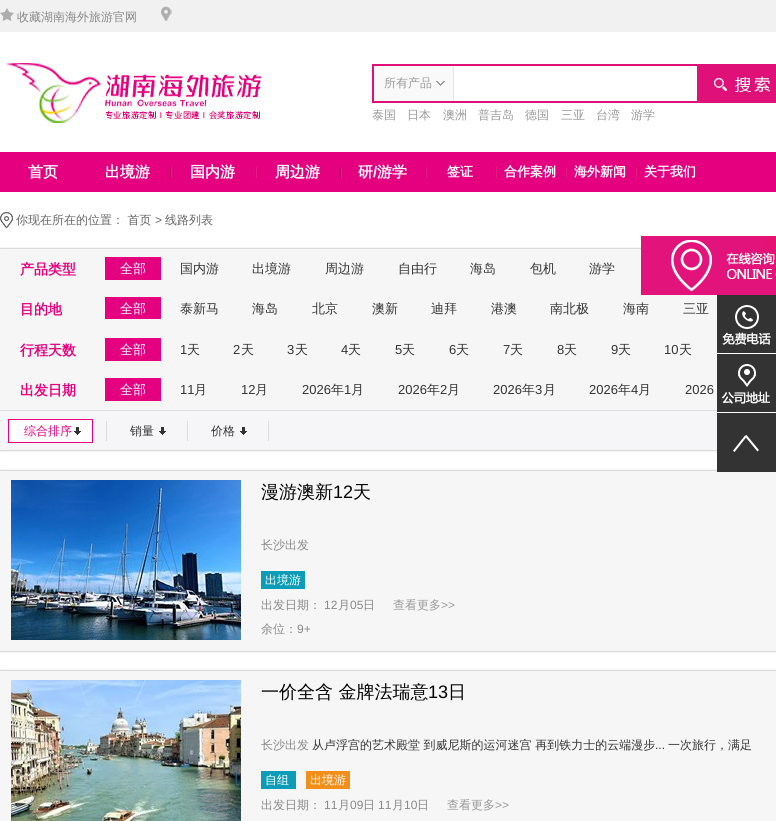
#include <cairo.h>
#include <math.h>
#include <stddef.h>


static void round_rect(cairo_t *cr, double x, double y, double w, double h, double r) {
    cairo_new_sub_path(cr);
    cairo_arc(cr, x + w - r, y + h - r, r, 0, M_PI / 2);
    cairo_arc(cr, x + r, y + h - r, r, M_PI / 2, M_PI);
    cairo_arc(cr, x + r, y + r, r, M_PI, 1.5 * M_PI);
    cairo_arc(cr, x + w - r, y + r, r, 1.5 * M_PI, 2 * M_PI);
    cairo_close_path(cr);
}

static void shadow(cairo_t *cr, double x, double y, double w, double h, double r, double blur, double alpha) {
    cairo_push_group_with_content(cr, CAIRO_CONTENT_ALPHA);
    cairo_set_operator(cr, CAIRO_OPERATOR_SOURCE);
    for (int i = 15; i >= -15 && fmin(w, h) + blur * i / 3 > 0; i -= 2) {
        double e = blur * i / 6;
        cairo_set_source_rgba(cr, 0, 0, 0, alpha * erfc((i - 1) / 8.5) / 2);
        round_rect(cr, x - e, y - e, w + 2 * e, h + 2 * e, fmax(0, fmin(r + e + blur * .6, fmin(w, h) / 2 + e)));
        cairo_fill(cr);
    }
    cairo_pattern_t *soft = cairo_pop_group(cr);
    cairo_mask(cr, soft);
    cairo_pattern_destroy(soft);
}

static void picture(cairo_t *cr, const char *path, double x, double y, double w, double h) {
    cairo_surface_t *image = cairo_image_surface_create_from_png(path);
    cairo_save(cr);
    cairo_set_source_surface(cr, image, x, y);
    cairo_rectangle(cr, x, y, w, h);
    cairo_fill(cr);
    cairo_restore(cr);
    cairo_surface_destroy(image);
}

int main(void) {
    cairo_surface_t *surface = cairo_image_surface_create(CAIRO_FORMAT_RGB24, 776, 821);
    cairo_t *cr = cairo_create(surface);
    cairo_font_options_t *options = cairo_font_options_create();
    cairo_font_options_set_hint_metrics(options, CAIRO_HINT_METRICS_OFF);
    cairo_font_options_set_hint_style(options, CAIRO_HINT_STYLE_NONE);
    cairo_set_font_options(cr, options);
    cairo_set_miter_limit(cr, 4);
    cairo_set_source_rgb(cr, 1, 1, 1);
    cairo_paint(cr);
    cairo_set_source_rgb(cr, 0.945, 0.945, 0.945);
    cairo_rectangle(cr, 0, 0, 776, 32);
    cairo_fill(cr);
    picture(cr, "img1.png", 0, 8, 14, 13);
    cairo_select_font_face(cr, "WenQuanYi Zen Hei Medium", CAIRO_FONT_SLANT_NORMAL, CAIRO_FONT_WEIGHT_NORMAL);
    cairo_set_font_size(cr, 12);
    cairo_set_source_rgb(cr, 0.533, 0.533, 0.533);
    cairo_move_to(cr, 17, 21);
    cairo_show_text(cr, "收藏湖南海外旅游官网");
    picture(cr, "img2.png", 161, 6, 11, 15);
    picture(cr, "img3.png", 6, 63, 255, 61);
    cairo_set_source_rgb(cr, 0.875, 0.063, 0.471);
    cairo_rectangle(cr, 372, 64, 325, 2);
    cairo_fill(cr);
    cairo_rectangle(cr, 372, 101, 325, 2);
    cairo_fill(cr);
    cairo_rectangle(cr, 372, 64, 2, 39);
    cairo_fill(cr);
    cairo_set_source_rgb(cr, 0.973, 0.973, 0.973);
    cairo_rectangle(cr, 374, 66, 79, 35);
    cairo_fill(cr);
    cairo_set_source_rgb(cr, 0.898, 0.898, 0.898);
    cairo_rectangle(cr, 453, 66, 1, 35);
    cairo_fill(cr);
    cairo_set_source_rgb(cr, 0.6, 0.6, 0.6);
    cairo_move_to(cr, 384, 87);
    cairo_show_text(cr, "所有产品");
    picture(cr, "img4.png", 436, 81, 9, 5);
    picture(cr, "img5.png", 697, 64, 79, 39);
    cairo_move_to(cr, 372, 119);
    cairo_show_text(cr, "泰国");
    cairo_move_to(cr, 407, 119);
    cairo_show_text(cr, "日本");
    cairo_move_to(cr, 443, 119);
    cairo_show_text(cr, "澳洲");
    cairo_move_to(cr, 478, 119);
    cairo_show_text(cr, "普吉岛");
    cairo_move_to(cr, 525, 119);
    cairo_show_text(cr, "德国");
    cairo_move_to(cr, 561, 119);
    cairo_show_text(cr, "三亚");
    cairo_move_to(cr, 596, 119);
    cairo_show_text(cr, "台湾");
    cairo_move_to(cr, 631, 119);
    cairo_show_text(cr, "游学");
    cairo_set_source_rgb(cr, 0.894, 0, 0.494);
    cairo_rectangle(cr, 0, 152, 776, 40);
    cairo_fill(cr);
    cairo_select_font_face(cr, "WenQuanYi Zen Hei", CAIRO_FONT_SLANT_NORMAL, CAIRO_FONT_WEIGHT_BOLD);
    cairo_set_font_size(cr, 15);
    cairo_set_source_rgb(cr, 1, 1, 1);
    cairo_move_to(cr, 28, 177);
    cairo_show_text(cr, "首页");
    cairo_move_to(cr, 105, 177);
    cairo_show_text(cr, "出境游");
    picture(cr, "img6.png", 170, 167, 2, 11);
    cairo_move_to(cr, 190, 177);
    cairo_show_text(cr, "国内游");
    picture(cr, "img6.png", 255, 167, 2, 11);
    cairo_move_to(cr, 275, 177);
    cairo_show_text(cr, "周边游");
    picture(cr, "img6.png", 340, 167, 2, 11);
    cairo_move_to(cr, 358, 177);
    cairo_show_text(cr, "研");
    cairo_select_font_face(cr, "Liberation Sans", CAIRO_FONT_SLANT_NORMAL, CAIRO_FONT_WEIGHT_BOLD);
    cairo_move_to(cr, 373, 177);
    cairo_show_text(cr, "/");
    cairo_select_font_face(cr, "WenQuanYi Zen Hei", CAIRO_FONT_SLANT_NORMAL, CAIRO_FONT_WEIGHT_BOLD);
    cairo_move_to(cr, 377, 177);
    cairo_show_text(cr, "游学");
    picture(cr, "img6.png", 425, 167, 2, 11);
    cairo_set_font_size(cr, 13);
    cairo_move_to(cr, 447, 176);
    cairo_show_text(cr, "签证");
    picture(cr, "img6.png", 495, 167, 2, 11);
    cairo_move_to(cr, 504, 176);
    cairo_show_text(cr, "合作案例");
    picture(cr, "img6.png", 565, 167, 2, 11);
    cairo_move_to(cr, 574, 176);
    cairo_show_text(cr, "海外新闻");
    picture(cr, "img6.png", 635, 167, 2, 11);
    cairo_move_to(cr, 644, 176);
    cairo_show_text(cr, "关于我们");
    picture(cr, "img7.png", 0, 212, 13, 16);
    cairo_select_font_face(cr, "WenQuanYi Zen Hei Medium", CAIRO_FONT_SLANT_NORMAL, CAIRO_FONT_WEIGHT_NORMAL);
    cairo_set_font_size(cr, 12);
    cairo_set_source_rgb(cr, 0.4, 0.4, 0.4);
    cairo_move_to(cr, 16, 224);
    cairo_show_text(cr, "你现在所在的位置： 首页");
    cairo_select_font_face(cr, "Liberation Sans", CAIRO_FONT_SLANT_NORMAL, CAIRO_FONT_WEIGHT_NORMAL);
    cairo_move_to(cr, 155, 224);
    cairo_show_text(cr, ">");
    cairo_select_font_face(cr, "WenQuanYi Zen Hei Medium", CAIRO_FONT_SLANT_NORMAL, CAIRO_FONT_WEIGHT_NORMAL);
    cairo_move_to(cr, 165, 224);
    cairo_show_text(cr, "线路列表");
    cairo_set_source_rgb(cr, 0.58, 0.58, 0.58);
    shadow(cr, 0, 249, 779, 201, 0, 1, 1);
    cairo_set_source_rgb(cr, 0.961, 0.961, 0.961);
    cairo_rectangle(cr, 0, 249, 717, 160);
    cairo_fill(cr);
    picture(cr, "img8.png", 641, 236, 135, 59);
    picture(cr, "img9.png", 717, 295, 59, 59);
    picture(cr, "img10.png", 717, 354, 59, 59);
    cairo_set_source_rgb(cr, 0.58, 0.58, 0.58);
    shadow(cr, 0, 471, 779, 180, 0, 1, 1);
    cairo_set_source_rgb(cr, 0.961, 0.961, 0.961);
    cairo_rectangle(cr, 0.5, 471.5, 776, 179);
    cairo_fill_preserve(cr);
    cairo_set_source_rgb(cr, 0.961, 0.961, 0.976);
    cairo_set_line_width(cr, 1);
    cairo_stroke(cr);
    picture(cr, "img11.png", 717, 413, 59, 59);
    cairo_rectangle(cr, 0, 288, 641, 1);
    cairo_fill(cr);
    cairo_select_font_face(cr, "WenQuanYi Zen Hei", CAIRO_FONT_SLANT_NORMAL, CAIRO_FONT_WEIGHT_BOLD);
    cairo_set_font_size(cr, 14);
    cairo_set_source_rgb(cr, 0.894, 0, 0.498);
    cairo_move_to(cr, 20, 274);
    cairo_show_text(cr, "产品类型");
    cairo_rectangle(cr, 105, 257, 56, 23);
    cairo_fill(cr);
    cairo_select_font_face(cr, "WenQuanYi Zen Hei Medium", CAIRO_FONT_SLANT_NORMAL, CAIRO_FONT_WEIGHT_NORMAL);
    cairo_set_font_size(cr, 13);
    cairo_set_source_rgb(cr, 1, 1, 1);
    cairo_move_to(cr, 120, 273);
    cairo_show_text(cr, "全部");
    cairo_set_source_rgb(cr, 0.2, 0.2, 0.2);
    cairo_move_to(cr, 180, 273);
    cairo_show_text(cr, "国内游");
    cairo_move_to(cr, 252, 273);
    cairo_show_text(cr, "出境游");
    cairo_move_to(cr, 325, 273);
    cairo_show_text(cr, "周边游");
    cairo_move_to(cr, 398, 273);
    cairo_show_text(cr, "自由行");
    cairo_move_to(cr, 470, 273);
    cairo_show_text(cr, "海岛");
    cairo_move_to(cr, 530, 273);
    cairo_show_text(cr, "包机");
    cairo_move_to(cr, 589, 273);
    cairo_show_text(cr, "游学");
    cairo_set_source_rgb(cr, 0.961, 0.961, 0.976);
    cairo_rectangle(cr, 0, 329, 717, 1);
    cairo_fill(cr);
    cairo_select_font_face(cr, "WenQuanYi Zen Hei", CAIRO_FONT_SLANT_NORMAL, CAIRO_FONT_WEIGHT_BOLD);
    cairo_set_font_size(cr, 14);
    cairo_set_source_rgb(cr, 0.894, 0, 0.498);
    cairo_move_to(cr, 20, 314);
    cairo_show_text(cr, "目的地");
    cairo_rectangle(cr, 105, 297, 56, 22);
    cairo_fill(cr);
    cairo_select_font_face(cr, "WenQuanYi Zen Hei Medium", CAIRO_FONT_SLANT_NORMAL, CAIRO_FONT_WEIGHT_NORMAL);
    cairo_set_font_size(cr, 13);
    cairo_set_source_rgb(cr, 1, 1, 1);
    cairo_move_to(cr, 120, 313);
    cairo_show_text(cr, "全部");
    cairo_set_source_rgb(cr, 0.2, 0.2, 0.2);
    cairo_move_to(cr, 180, 313);
    cairo_show_text(cr, "泰新马");
    cairo_move_to(cr, 252, 313);
    cairo_show_text(cr, "海岛");
    cairo_move_to(cr, 312, 313);
    cairo_show_text(cr, "北京");
    cairo_move_to(cr, 372, 313);
    cairo_show_text(cr, "澳新");
    cairo_move_to(cr, 431, 313);
    cairo_show_text(cr, "迪拜");
    cairo_move_to(cr, 491, 313);
    cairo_show_text(cr, "港澳");
    cairo_move_to(cr, 550, 313);
    cairo_show_text(cr, "南北极");
    cairo_move_to(cr, 623, 313);
    cairo_show_text(cr, "海南");
    cairo_move_to(cr, 683, 313);
    cairo_show_text(cr, "三亚");
    cairo_set_source_rgb(cr, 0.961, 0.961, 0.976);
    cairo_rectangle(cr, 0, 369, 717, 1);
    cairo_fill(cr);
    cairo_select_font_face(cr, "WenQuanYi Zen Hei", CAIRO_FONT_SLANT_NORMAL, CAIRO_FONT_WEIGHT_BOLD);
    cairo_set_font_size(cr, 14);
    cairo_set_source_rgb(cr, 0.894, 0, 0.498);
    cairo_move_to(cr, 20, 355);
    cairo_show_text(cr, "行程天数");
    cairo_rectangle(cr, 105, 338, 56, 23);
    cairo_fill(cr);
    cairo_select_font_face(cr, "WenQuanYi Zen Hei Medium", CAIRO_FONT_SLANT_NORMAL, CAIRO_FONT_WEIGHT_NORMAL);
    cairo_set_font_size(cr, 13);
    cairo_set_source_rgb(cr, 1, 1, 1);
    cairo_move_to(cr, 120, 354);
    cairo_show_text(cr, "全部");
    cairo_select_font_face(cr, "Liberation Sans", CAIRO_FONT_SLANT_NORMAL, CAIRO_FONT_WEIGHT_NORMAL);
    cairo_set_source_rgb(cr, 0.2, 0.2, 0.2);
    cairo_move_to(cr, 180, 354);
    cairo_show_text(cr, "1");
    cairo_select_font_face(cr, "WenQuanYi Zen Hei Medium", CAIRO_FONT_SLANT_NORMAL, CAIRO_FONT_WEIGHT_NORMAL);
    cairo_move_to(cr, 187, 354);
    cairo_show_text(cr, "天");
    cairo_select_font_face(cr, "Liberation Sans", CAIRO_FONT_SLANT_NORMAL, CAIRO_FONT_WEIGHT_NORMAL);
    cairo_move_to(cr, 233, 354);
    cairo_show_text(cr, "2");
    cairo_select_font_face(cr, "WenQuanYi Zen Hei Medium", CAIRO_FONT_SLANT_NORMAL, CAIRO_FONT_WEIGHT_NORMAL);
    cairo_move_to(cr, 241, 354);
    cairo_show_text(cr, "天");
    cairo_select_font_face(cr, "Liberation Sans", CAIRO_FONT_SLANT_NORMAL, CAIRO_FONT_WEIGHT_NORMAL);
    cairo_move_to(cr, 287, 354);
    cairo_show_text(cr, "3");
    cairo_select_font_face(cr, "WenQuanYi Zen Hei Medium", CAIRO_FONT_SLANT_NORMAL, CAIRO_FONT_WEIGHT_NORMAL);
    cairo_move_to(cr, 295, 354);
    cairo_show_text(cr, "天");
    cairo_select_font_face(cr, "Liberation Sans", CAIRO_FONT_SLANT_NORMAL, CAIRO_FONT_WEIGHT_NORMAL);
    cairo_move_to(cr, 341, 354);
    cairo_show_text(cr, "4");
    cairo_select_font_face(cr, "WenQuanYi Zen Hei Medium", CAIRO_FONT_SLANT_NORMAL, CAIRO_FONT_WEIGHT_NORMAL);
    cairo_move_to(cr, 348, 354);
    cairo_show_text(cr, "天");
    cairo_select_font_face(cr, "Liberation Sans", CAIRO_FONT_SLANT_NORMAL, CAIRO_FONT_WEIGHT_NORMAL);
    cairo_move_to(cr, 395, 354);
    cairo_show_text(cr, "5");
    cairo_select_font_face(cr, "WenQuanYi Zen Hei Medium", CAIRO_FONT_SLANT_NORMAL, CAIRO_FONT_WEIGHT_NORMAL);
    cairo_move_to(cr, 402, 354);
    cairo_show_text(cr, "天");
    cairo_select_font_face(cr, "Liberation Sans", CAIRO_FONT_SLANT_NORMAL, CAIRO_FONT_WEIGHT_NORMAL);
    cairo_move_to(cr, 449, 354);
    cairo_show_text(cr, "6");
    cairo_select_font_face(cr, "WenQuanYi Zen Hei Medium", CAIRO_FONT_SLANT_NORMAL, CAIRO_FONT_WEIGHT_NORMAL);
    cairo_move_to(cr, 456, 354);
    cairo_show_text(cr, "天");
    cairo_select_font_face(cr, "Liberation Sans", CAIRO_FONT_SLANT_NORMAL, CAIRO_FONT_WEIGHT_NORMAL);
    cairo_move_to(cr, 503, 354);
    cairo_show_text(cr, "7");
    cairo_select_font_face(cr, "WenQuanYi Zen Hei Medium", CAIRO_FONT_SLANT_NORMAL, CAIRO_FONT_WEIGHT_NORMAL);
    cairo_move_to(cr, 510, 354);
    cairo_show_text(cr, "天");
    cairo_select_font_face(cr, "Liberation Sans", CAIRO_FONT_SLANT_NORMAL, CAIRO_FONT_WEIGHT_NORMAL);
    cairo_move_to(cr, 557, 354);
    cairo_show_text(cr, "8");
    cairo_select_font_face(cr, "WenQuanYi Zen Hei Medium", CAIRO_FONT_SLANT_NORMAL, CAIRO_FONT_WEIGHT_NORMAL);
    cairo_move_to(cr, 564, 354);
    cairo_show_text(cr, "天");
    cairo_select_font_face(cr, "Liberation Sans", CAIRO_FONT_SLANT_NORMAL, CAIRO_FONT_WEIGHT_NORMAL);
    cairo_move_to(cr, 611, 354);
    cairo_show_text(cr, "9");
    cairo_select_font_face(cr, "WenQuanYi Zen Hei Medium", CAIRO_FONT_SLANT_NORMAL, CAIRO_FONT_WEIGHT_NORMAL);
    cairo_move_to(cr, 618, 354);
    cairo_show_text(cr, "天");
    cairo_select_font_face(cr, "Liberation Sans", CAIRO_FONT_SLANT_NORMAL, CAIRO_FONT_WEIGHT_NORMAL);
    cairo_move_to(cr, 664, 354);
    cairo_show_text(cr, "10");
    cairo_select_font_face(cr, "WenQuanYi Zen Hei Medium", CAIRO_FONT_SLANT_NORMAL, CAIRO_FONT_WEIGHT_NORMAL);
    cairo_move_to(cr, 679, 354);
    cairo_show_text(cr, "天");
    cairo_set_source_rgb(cr, 0.961, 0.961, 0.976);
    cairo_rectangle(cr, 0, 409, 717, 1);
    cairo_fill(cr);
    cairo_select_font_face(cr, "WenQuanYi Zen Hei", CAIRO_FONT_SLANT_NORMAL, CAIRO_FONT_WEIGHT_BOLD);
    cairo_set_font_size(cr, 14);
    cairo_set_source_rgb(cr, 0.894, 0, 0.498);
    cairo_move_to(cr, 20, 395);
    cairo_show_text(cr, "出发日期");
    cairo_rectangle(cr, 105, 378, 56, 23);
    cairo_fill(cr);
    cairo_select_font_face(cr, "WenQuanYi Zen Hei Medium", CAIRO_FONT_SLANT_NORMAL, CAIRO_FONT_WEIGHT_NORMAL);
    cairo_set_font_size(cr, 13);
    cairo_set_source_rgb(cr, 1, 1, 1);
    cairo_move_to(cr, 120, 394);
    cairo_show_text(cr, "全部");
    cairo_select_font_face(cr, "Liberation Sans", CAIRO_FONT_SLANT_NORMAL, CAIRO_FONT_WEIGHT_NORMAL);
    cairo_set_source_rgb(cr, 0.2, 0.2, 0.2);
    cairo_move_to(cr, 180, 394);
    cairo_show_text(cr, "11");
    cairo_select_font_face(cr, "WenQuanYi Zen Hei Medium", CAIRO_FONT_SLANT_NORMAL, CAIRO_FONT_WEIGHT_NORMAL);
    cairo_move_to(cr, 194, 394);
    cairo_show_text(cr, "月");
    cairo_select_font_face(cr, "Liberation Sans", CAIRO_FONT_SLANT_NORMAL, CAIRO_FONT_WEIGHT_NORMAL);
    cairo_move_to(cr, 241, 394);
    cairo_show_text(cr, "12");
    cairo_select_font_face(cr, "WenQuanYi Zen Hei Medium", CAIRO_FONT_SLANT_NORMAL, CAIRO_FONT_WEIGHT_NORMAL);
    cairo_move_to(cr, 255, 394);
    cairo_show_text(cr, "月");
    cairo_select_font_face(cr, "Liberation Sans", CAIRO_FONT_SLANT_NORMAL, CAIRO_FONT_WEIGHT_NORMAL);
    cairo_move_to(cr, 302, 394);
    cairo_show_text(cr, "2026");
    cairo_select_font_face(cr, "WenQuanYi Zen Hei Medium", CAIRO_FONT_SLANT_NORMAL, CAIRO_FONT_WEIGHT_NORMAL);
    cairo_move_to(cr, 331, 394);
    cairo_show_text(cr, "年");
    cairo_select_font_face(cr, "Liberation Sans", CAIRO_FONT_SLANT_NORMAL, CAIRO_FONT_WEIGHT_NORMAL);
    cairo_move_to(cr, 344, 394);
    cairo_show_text(cr, "1");
    cairo_select_font_face(cr, "WenQuanYi Zen Hei Medium", CAIRO_FONT_SLANT_NORMAL, CAIRO_FONT_WEIGHT_NORMAL);
    cairo_move_to(cr, 351, 394);
    cairo_show_text(cr, "月");
    cairo_select_font_face(cr, "Liberation Sans", CAIRO_FONT_SLANT_NORMAL, CAIRO_FONT_WEIGHT_NORMAL);
    cairo_move_to(cr, 398, 394);
    cairo_show_text(cr, "2026");
    cairo_select_font_face(cr, "WenQuanYi Zen Hei Medium", CAIRO_FONT_SLANT_NORMAL, CAIRO_FONT_WEIGHT_NORMAL);
    cairo_move_to(cr, 427, 394);
    cairo_show_text(cr, "年");
    cairo_select_font_face(cr, "Liberation Sans", CAIRO_FONT_SLANT_NORMAL, CAIRO_FONT_WEIGHT_NORMAL);
    cairo_move_to(cr, 440, 394);
    cairo_show_text(cr, "2");
    cairo_select_font_face(cr, "WenQuanYi Zen Hei Medium", CAIRO_FONT_SLANT_NORMAL, CAIRO_FONT_WEIGHT_NORMAL);
    cairo_move_to(cr, 447, 394);
    cairo_show_text(cr, "月");
    cairo_select_font_face(cr, "Liberation Sans", CAIRO_FONT_SLANT_NORMAL, CAIRO_FONT_WEIGHT_NORMAL);
    cairo_move_to(cr, 493, 394);
    cairo_show_text(cr, "2026");
    cairo_select_font_face(cr, "WenQuanYi Zen Hei Medium", CAIRO_FONT_SLANT_NORMAL, CAIRO_FONT_WEIGHT_NORMAL);
    cairo_move_to(cr, 522, 394);
    cairo_show_text(cr, "年");
    cairo_select_font_face(cr, "Liberation Sans", CAIRO_FONT_SLANT_NORMAL, CAIRO_FONT_WEIGHT_NORMAL);
    cairo_move_to(cr, 535, 394);
    cairo_show_text(cr, "3");
    cairo_select_font_face(cr, "WenQuanYi Zen Hei Medium", CAIRO_FONT_SLANT_NORMAL, CAIRO_FONT_WEIGHT_NORMAL);
    cairo_move_to(cr, 543, 394);
    cairo_show_text(cr, "月");
    cairo_select_font_face(cr, "Liberation Sans", CAIRO_FONT_SLANT_NORMAL, CAIRO_FONT_WEIGHT_NORMAL);
    cairo_move_to(cr, 589, 394);
    cairo_show_text(cr, "2026");
    cairo_select_font_face(cr, "WenQuanYi Zen Hei Medium", CAIRO_FONT_SLANT_NORMAL, CAIRO_FONT_WEIGHT_NORMAL);
    cairo_move_to(cr, 618, 394);
    cairo_show_text(cr, "年");
    cairo_select_font_face(cr, "Liberation Sans", CAIRO_FONT_SLANT_NORMAL, CAIRO_FONT_WEIGHT_NORMAL);
    cairo_move_to(cr, 631, 394);
    cairo_show_text(cr, "4");
    cairo_select_font_face(cr, "WenQuanYi Zen Hei Medium", CAIRO_FONT_SLANT_NORMAL, CAIRO_FONT_WEIGHT_NORMAL);
    cairo_move_to(cr, 638, 394);
    cairo_show_text(cr, "月");
    cairo_select_font_face(cr, "Liberation Sans", CAIRO_FONT_SLANT_NORMAL, CAIRO_FONT_WEIGHT_NORMAL);
    cairo_move_to(cr, 685, 394);
    cairo_show_text(cr, "2026");
    cairo_set_source_rgb(cr, 0.961, 0.961, 0.976);
    cairo_rectangle(cr, 0, 411, 717, 39);
    cairo_fill(cr);
    cairo_set_source_rgb(cr, 0.867, 0.867, 0.867);
    cairo_rectangle(cr, 0, 410, 717, 1);
    cairo_fill(cr);
    cairo_set_source_rgb(cr, 1, 1, 1);
    cairo_rectangle(cr, 9, 420, 83, 22);
    cairo_fill(cr);
    picture(cr, "img12.png", 74, 427, 7, 8);
    cairo_rectangle(cr, 8.5, 419.5, 84, 23);
    cairo_set_source_rgb(cr, 0.894, 0, 0.498);
    cairo_stroke(cr);
    cairo_select_font_face(cr, "WenQuanYi Zen Hei Medium", CAIRO_FONT_SLANT_NORMAL, CAIRO_FONT_WEIGHT_NORMAL);
    cairo_set_font_size(cr, 12);
    cairo_move_to(cr, 24, 435);
    cairo_show_text(cr, "综合排序");
    cairo_set_source_rgb(cr, 0.867, 0.867, 0.867);
    cairo_rectangle(cr, 106, 421, 1, 20);
    cairo_fill(cr);
    cairo_set_source_rgb(cr, 0.2, 0.2, 0.2);
    cairo_move_to(cr, 130, 435);
    cairo_show_text(cr, "销量");
    picture(cr, "img13.png", 159, 427, 7, 8);
    cairo_set_source_rgb(cr, 0.867, 0.867, 0.867);
    cairo_rectangle(cr, 187, 421, 1, 20);
    cairo_fill(cr);
    cairo_set_source_rgb(cr, 0.2, 0.2, 0.2);
    cairo_move_to(cr, 211, 435);
    cairo_show_text(cr, "价格");
    picture(cr, "img13.png", 240, 427, 7, 8);
    cairo_set_source_rgb(cr, 0.867, 0.867, 0.867);
    cairo_rectangle(cr, 268, 421, 1, 20);
    cairo_fill(cr);
    picture(cr, "img14.png", 11, 480, 230, 160);
    cairo_set_font_size(cr, 18);
    cairo_set_source_rgb(cr, 0, 0, 0);
    cairo_move_to(cr, 261, 498);
    cairo_show_text(cr, "漫游澳新");
    cairo_select_font_face(cr, "Liberation Sans", CAIRO_FONT_SLANT_NORMAL, CAIRO_FONT_WEIGHT_NORMAL);
    cairo_move_to(cr, 333, 498);
    cairo_show_text(cr, "12");
    cairo_select_font_face(cr, "WenQuanYi Zen Hei Medium", CAIRO_FONT_SLANT_NORMAL, CAIRO_FONT_WEIGHT_NORMAL);
    cairo_move_to(cr, 353, 498);
    cairo_show_text(cr, "天");
    cairo_set_font_size(cr, 12);
    cairo_set_source_rgb(cr, 0.533, 0.533, 0.533);
    cairo_move_to(cr, 261, 549);
    cairo_show_text(cr, "长沙出发");
    cairo_set_source_rgb(cr, 0.043, 0.616, 0.718);
    cairo_rectangle(cr, 261, 571, 44, 18);
    cairo_fill(cr);
    cairo_set_source_rgb(cr, 1, 1, 1);
    cairo_move_to(cr, 265, 584);
    cairo_show_text(cr, "出境游");
    cairo_set_source_rgb(cr, 0.533, 0.533, 0.533);
    cairo_move_to(cr, 261, 609);
    cairo_show_text(cr, "出发日期：");
    cairo_select_font_face(cr, "Liberation Sans", CAIRO_FONT_SLANT_NORMAL, CAIRO_FONT_WEIGHT_NORMAL);
    cairo_move_to(cr, 324, 609);
    cairo_show_text(cr, "12");
    cairo_select_font_face(cr, "WenQuanYi Zen Hei Medium", CAIRO_FONT_SLANT_NORMAL, CAIRO_FONT_WEIGHT_NORMAL);
    cairo_move_to(cr, 338, 609);
    cairo_show_text(cr, "月");
    cairo_select_font_face(cr, "Liberation Sans", CAIRO_FONT_SLANT_NORMAL, CAIRO_FONT_WEIGHT_NORMAL);
    cairo_move_to(cr, 350, 609);
    cairo_show_text(cr, "05");
    cairo_select_font_face(cr, "WenQuanYi Zen Hei Medium", CAIRO_FONT_SLANT_NORMAL, CAIRO_FONT_WEIGHT_NORMAL);
    cairo_move_to(cr, 363, 609);
    cairo_show_text(cr, "日");
    cairo_set_source_rgb(cr, 0.6, 0.6, 0.6);
    cairo_move_to(cr, 393, 609);
    cairo_show_text(cr, "查看更多");
    cairo_select_font_face(cr, "Liberation Sans", CAIRO_FONT_SLANT_NORMAL, CAIRO_FONT_WEIGHT_NORMAL);
    cairo_move_to(cr, 441, 609);
    cairo_show_text(cr, ">>");
    cairo_select_font_face(cr, "WenQuanYi Zen Hei Medium", CAIRO_FONT_SLANT_NORMAL, CAIRO_FONT_WEIGHT_NORMAL);
    cairo_set_source_rgb(cr, 0.533, 0.533, 0.533);
    cairo_move_to(cr, 261, 633);
    cairo_show_text(cr, "余位：");
    cairo_select_font_face(cr, "Liberation Sans", CAIRO_FONT_SLANT_NORMAL, CAIRO_FONT_WEIGHT_NORMAL);
    cairo_move_to(cr, 297, 633);
    cairo_show_text(cr, "9+");
    cairo_set_source_rgb(cr, 0.58, 0.58, 0.58);
    shadow(cr, 0, 671, 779, 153, 0, 1, 1);
    cairo_set_source_rgb(cr, 0.961, 0.961, 0.961);
    cairo_rectangle(cr, 0.5, 671.5, 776, 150);
    cairo_fill_preserve(cr);
    cairo_set_source_rgb(cr, 0.961, 0.961, 0.976);
    cairo_stroke(cr);
    picture(cr, "img15.png", 11, 680, 230, 141);
    cairo_select_font_face(cr, "WenQuanYi Zen Hei Medium", CAIRO_FONT_SLANT_NORMAL, CAIRO_FONT_WEIGHT_NORMAL);
    cairo_set_font_size(cr, 18);
    cairo_set_source_rgb(cr, 0, 0, 0);
    cairo_move_to(cr, 261, 698);
    cairo_show_text(cr, "一价全含 金牌法瑞意");
    cairo_select_font_face(cr, "Liberation Sans", CAIRO_FONT_SLANT_NORMAL, CAIRO_FONT_WEIGHT_NORMAL);
    cairo_move_to(cr, 428, 698);
    cairo_show_text(cr, "13");
    cairo_select_font_face(cr, "WenQuanYi Zen Hei Medium", CAIRO_FONT_SLANT_NORMAL, CAIRO_FONT_WEIGHT_NORMAL);
    cairo_move_to(cr, 448, 698);
    cairo_show_text(cr, "日");
    cairo_set_font_size(cr, 12);
    cairo_set_source_rgb(cr, 0.533, 0.533, 0.533);
    cairo_move_to(cr, 261, 749);
    cairo_show_text(cr, "长沙出发");
    cairo_set_source_rgb(cr, 0.2, 0.2, 0.2);
    cairo_move_to(cr, 312, 749);
    cairo_show_text(cr, "从卢浮宫的艺术殿堂 到威尼斯的运河迷宫 再到铁力士的云端漫步");
    cairo_select_font_face(cr, "Liberation Sans", CAIRO_FONT_SLANT_NORMAL, CAIRO_FONT_WEIGHT_NORMAL);
    cairo_move_to(cr, 655, 749);
    cairo_show_text(cr, "...");
    cairo_select_font_face(cr, "WenQuanYi Zen Hei Medium", CAIRO_FONT_SLANT_NORMAL, CAIRO_FONT_WEIGHT_NORMAL);
    cairo_move_to(cr, 668, 749);
    cairo_show_text(cr, "一次旅行，满足");
    cairo_set_source_rgb(cr, 0.043, 0.616, 0.718);
    cairo_rectangle(cr, 261, 771, 35, 18);
    cairo_fill(cr);
    cairo_set_source_rgb(cr, 1, 1, 1);
    cairo_move_to(cr, 265, 784);
    cairo_show_text(cr, "自组");
    cairo_set_source_rgb(cr, 0.949, 0.561, 0.102);
    cairo_rectangle(cr, 306, 771, 44, 18);
    cairo_fill(cr);
    cairo_set_source_rgb(cr, 1, 1, 1);
    cairo_move_to(cr, 310, 784);
    cairo_show_text(cr, "出境游");
    cairo_set_source_rgb(cr, 0.533, 0.533, 0.533);
    cairo_move_to(cr, 261, 809);
    cairo_show_text(cr, "出发日期：");
    cairo_select_font_face(cr, "Liberation Sans", CAIRO_FONT_SLANT_NORMAL, CAIRO_FONT_WEIGHT_NORMAL);
    cairo_move_to(cr, 324, 809);
    cairo_show_text(cr, "11");
    cairo_select_font_face(cr, "WenQuanYi Zen Hei Medium", CAIRO_FONT_SLANT_NORMAL, CAIRO_FONT_WEIGHT_NORMAL);
    cairo_move_to(cr, 338, 809);
    cairo_show_text(cr, "月");
    cairo_select_font_face(cr, "Liberation Sans", CAIRO_FONT_SLANT_NORMAL, CAIRO_FONT_WEIGHT_NORMAL);
    cairo_move_to(cr, 350, 809);
    cairo_show_text(cr, "09");
    cairo_select_font_face(cr, "WenQuanYi Zen Hei Medium", CAIRO_FONT_SLANT_NORMAL, CAIRO_FONT_WEIGHT_NORMAL);
    cairo_move_to(cr, 363, 809);
    cairo_show_text(cr, "日");
    cairo_select_font_face(cr, "Liberation Sans", CAIRO_FONT_SLANT_NORMAL, CAIRO_FONT_WEIGHT_NORMAL);
    cairo_move_to(cr, 378, 809);
    cairo_show_text(cr, "11");
    cairo_select_font_face(cr, "WenQuanYi Zen Hei Medium", CAIRO_FONT_SLANT_NORMAL, CAIRO_FONT_WEIGHT_NORMAL);
    cairo_move_to(cr, 392, 809);
    cairo_show_text(cr, "月");
    cairo_select_font_face(cr, "Liberation Sans", CAIRO_FONT_SLANT_NORMAL, CAIRO_FONT_WEIGHT_NORMAL);
    cairo_move_to(cr, 404, 809);
    cairo_show_text(cr, "10");
    cairo_select_font_face(cr, "WenQuanYi Zen Hei Medium", CAIRO_FONT_SLANT_NORMAL, CAIRO_FONT_WEIGHT_NORMAL);
    cairo_move_to(cr, 417, 809);
    cairo_show_text(cr, "日");
    cairo_set_source_rgb(cr, 0.6, 0.6, 0.6);
    cairo_move_to(cr, 447, 809);
    cairo_show_text(cr, "查看更多");
    cairo_select_font_face(cr, "Liberation Sans", CAIRO_FONT_SLANT_NORMAL, CAIRO_FONT_WEIGHT_NORMAL);
    cairo_move_to(cr, 495, 809);
    cairo_show_text(cr, ">>");
    cairo_surface_write_to_png(surface, "page.png");
    cairo_font_options_destroy(options);
    cairo_destroy(cr);
    cairo_surface_destroy(surface);
    return 0;
}
